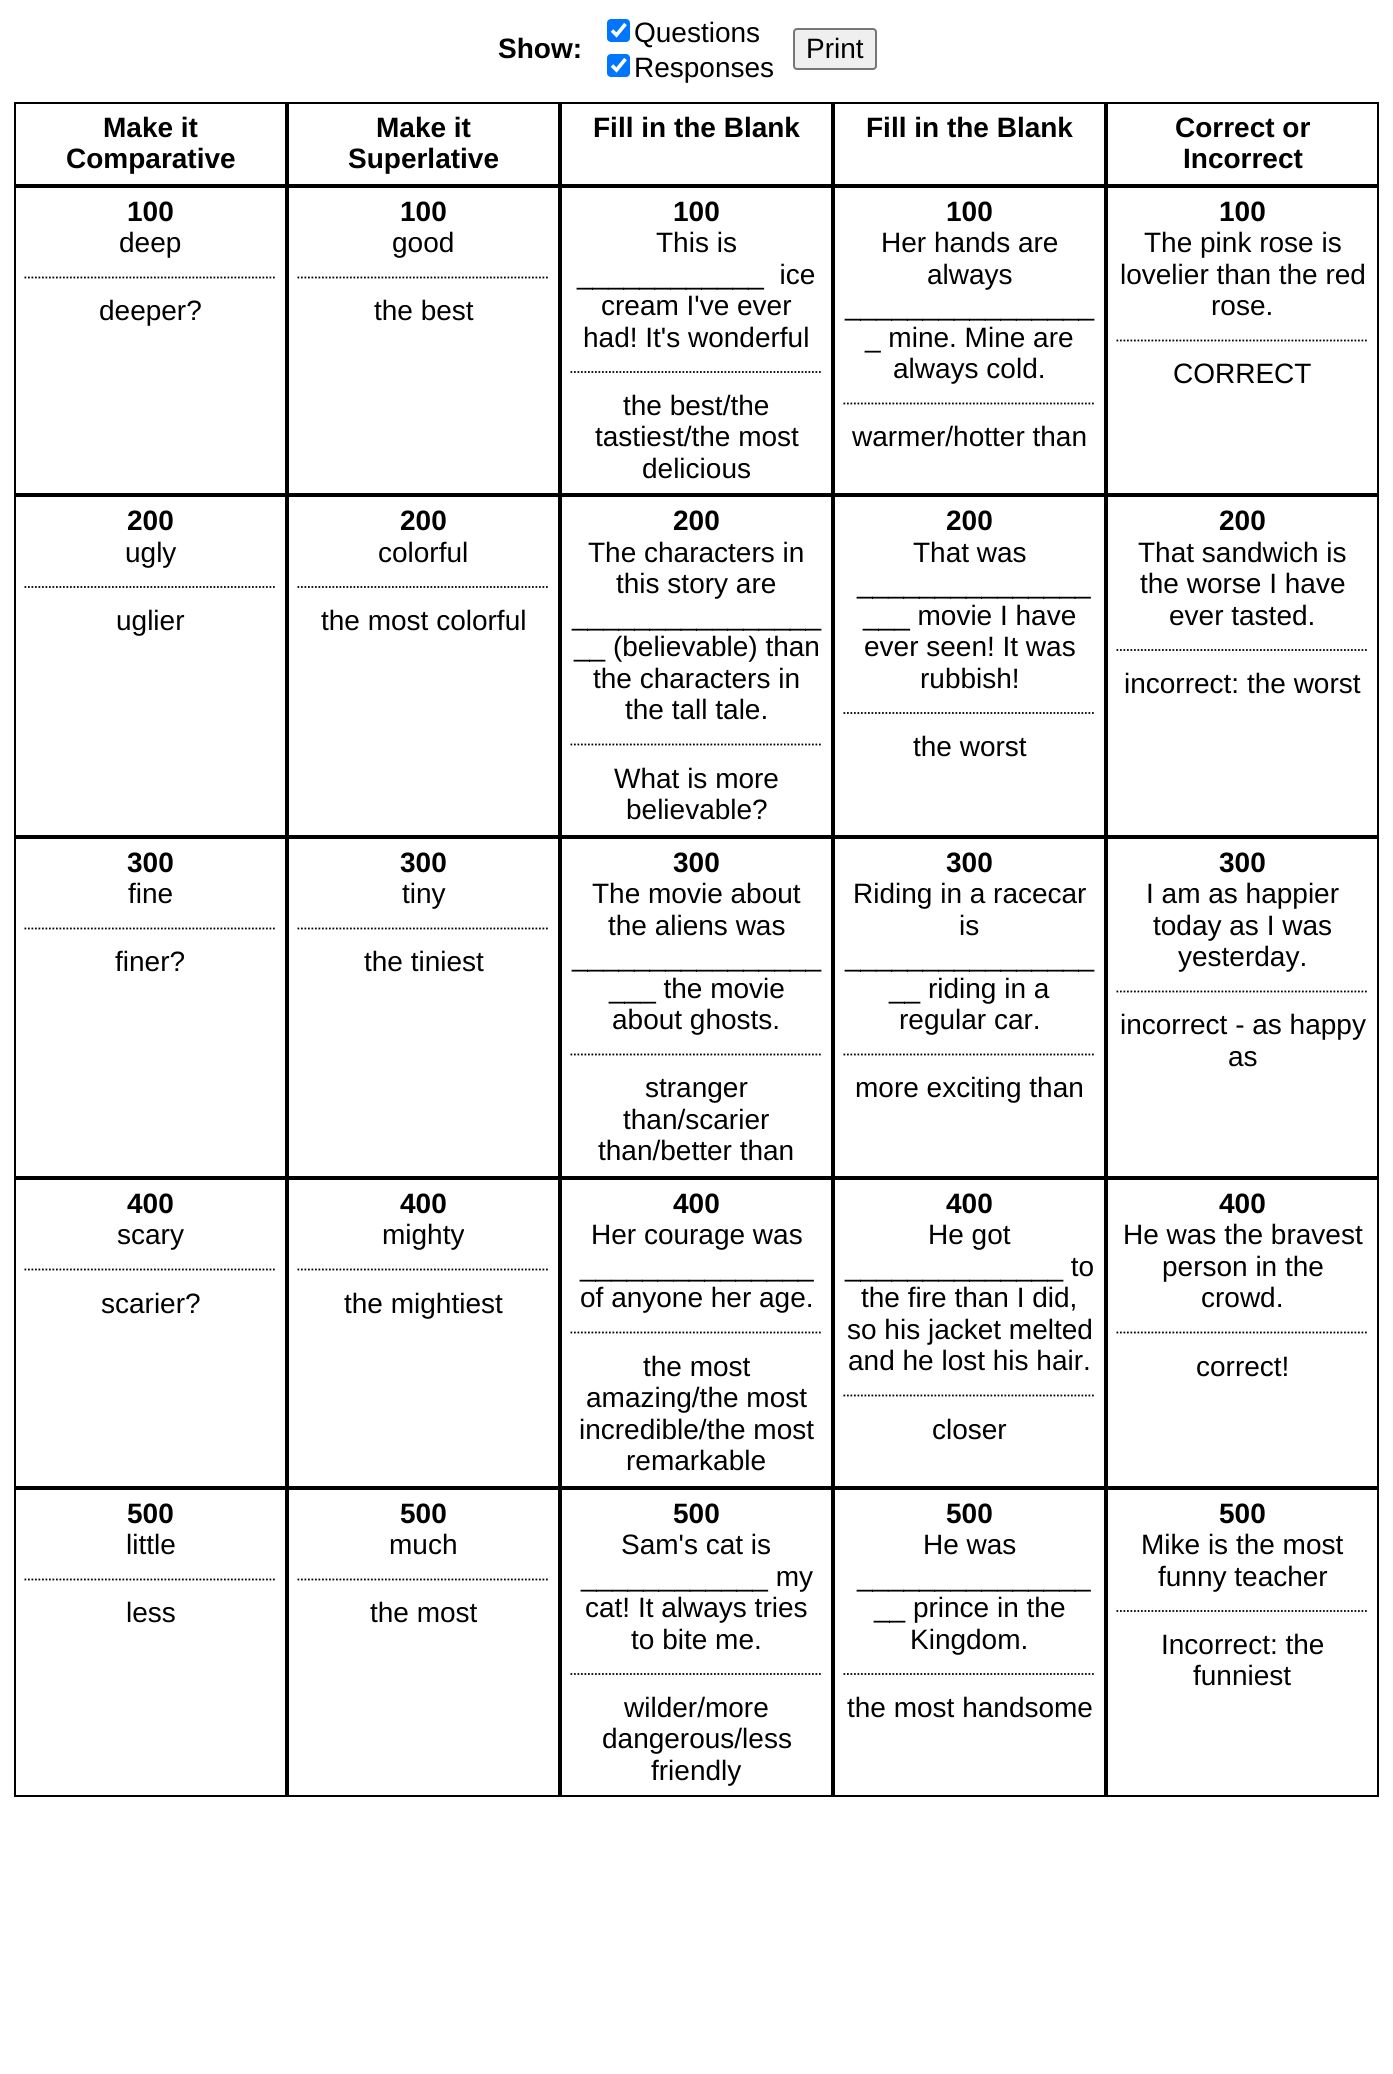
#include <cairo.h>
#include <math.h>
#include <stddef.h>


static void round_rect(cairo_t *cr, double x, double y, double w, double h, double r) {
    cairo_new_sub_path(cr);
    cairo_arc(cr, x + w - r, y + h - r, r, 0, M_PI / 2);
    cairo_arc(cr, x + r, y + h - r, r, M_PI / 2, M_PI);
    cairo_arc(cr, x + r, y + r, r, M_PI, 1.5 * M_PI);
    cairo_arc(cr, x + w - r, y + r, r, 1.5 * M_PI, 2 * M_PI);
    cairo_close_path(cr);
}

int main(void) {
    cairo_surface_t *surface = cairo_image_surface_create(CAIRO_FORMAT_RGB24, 1393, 2074);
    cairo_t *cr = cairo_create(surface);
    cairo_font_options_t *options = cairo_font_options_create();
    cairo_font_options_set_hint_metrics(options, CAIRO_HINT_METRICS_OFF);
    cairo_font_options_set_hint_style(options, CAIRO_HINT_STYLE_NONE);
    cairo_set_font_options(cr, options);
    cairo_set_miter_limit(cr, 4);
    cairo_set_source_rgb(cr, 1, 1, 1);
    cairo_paint(cr);
    cairo_select_font_face(cr, "Liberation Sans", CAIRO_FONT_SLANT_NORMAL, CAIRO_FONT_WEIGHT_BOLD);
    cairo_set_font_size(cr, 28);
    cairo_set_source_rgb(cr, 0, 0, 0);
    cairo_move_to(cr, 498, 58);
    cairo_show_text(cr, "Show:");
    cairo_set_source_rgb(cr, 0, 0.459, 1);
    round_rect(cr, 607, 19, 23, 23, 4);
    cairo_fill(cr);
    cairo_new_path(cr);
    cairo_move_to(cr, 612, 30.5);
    cairo_line_to(cr, 616.5, 35);
    cairo_line_to(cr, 625.5, 24);
    cairo_set_source_rgb(cr, 1, 1, 1);
    cairo_set_line_width(cr, 3.6);
    cairo_stroke(cr);
    cairo_select_font_face(cr, "Liberation Sans", CAIRO_FONT_SLANT_NORMAL, CAIRO_FONT_WEIGHT_NORMAL);
    cairo_set_source_rgb(cr, 0, 0, 0);
    cairo_move_to(cr, 634, 42);
    cairo_show_text(cr, "Questions");
    cairo_set_source_rgb(cr, 0, 0.459, 1);
    round_rect(cr, 607, 54, 23, 23, 4);
    cairo_fill(cr);
    cairo_new_path(cr);
    cairo_move_to(cr, 612, 65.5);
    cairo_line_to(cr, 616.5, 70);
    cairo_line_to(cr, 625.5, 59);
    cairo_set_source_rgb(cr, 1, 1, 1);
    cairo_stroke(cr);
    cairo_set_source_rgb(cr, 0, 0, 0);
    cairo_move_to(cr, 634, 77);
    cairo_show_text(cr, "Responses");
    cairo_set_source_rgb(cr, 0.937, 0.937, 0.937);
    round_rect(cr, 794, 29, 82, 40, 3);
    cairo_fill_preserve(cr);
    cairo_set_source_rgb(cr, 0.463, 0.463, 0.463);
    cairo_set_line_width(cr, 2);
    cairo_stroke(cr);
    cairo_set_source_rgb(cr, 0, 0, 0);
    cairo_move_to(cr, 806, 58);
    cairo_show_text(cr, "Print");
    cairo_rectangle(cr, 15, 103, 271, 82);
    cairo_stroke(cr);
    cairo_select_font_face(cr, "Liberation Sans", CAIRO_FONT_SLANT_NORMAL, CAIRO_FONT_WEIGHT_BOLD);
    cairo_move_to(cr, 103, 137);
    cairo_show_text(cr, "Make it");
    cairo_move_to(cr, 66, 168);
    cairo_show_text(cr, "Comparative");
    cairo_rectangle(cr, 288, 103, 271, 82);
    cairo_stroke(cr);
    cairo_move_to(cr, 376, 137);
    cairo_show_text(cr, "Make it");
    cairo_move_to(cr, 348, 168);
    cairo_show_text(cr, "Superlative");
    cairo_rectangle(cr, 561, 103, 271, 82);
    cairo_stroke(cr);
    cairo_move_to(cr, 593, 137);
    cairo_show_text(cr, "Fill in the Blank");
    cairo_rectangle(cr, 834, 103, 271, 82);
    cairo_stroke(cr);
    cairo_move_to(cr, 866, 137);
    cairo_show_text(cr, "Fill in the Blank");
    cairo_rectangle(cr, 1107, 103, 271, 82);
    cairo_stroke(cr);
    cairo_move_to(cr, 1175, 137);
    cairo_show_text(cr, "Correct or");
    cairo_move_to(cr, 1183, 168);
    cairo_show_text(cr, "Incorrect");
    cairo_rectangle(cr, 15, 187, 271, 307);
    cairo_stroke(cr);
    cairo_move_to(cr, 127, 221);
    cairo_show_text(cr, "100");
    cairo_select_font_face(cr, "Liberation Sans", CAIRO_FONT_SLANT_NORMAL, CAIRO_FONT_WEIGHT_NORMAL);
    cairo_move_to(cr, 119, 252);
    cairo_show_text(cr, "deep");
    cairo_new_path(cr);
    cairo_move_to(cr, 24.5, 277.5);
    cairo_line_to(cr, 276.5, 277.5);
    cairo_set_line_width(cr, 1.8);
    cairo_set_dash(cr, (double[]){1.75, 1.75}, 2, 0);
    cairo_stroke(cr);
    cairo_move_to(cr, 99, 320);
    cairo_show_text(cr, "deeper?");
    cairo_rectangle(cr, 288, 187, 271, 307);
    cairo_set_line_width(cr, 2);
    cairo_set_dash(cr, NULL, 0, 0);
    cairo_stroke(cr);
    cairo_select_font_face(cr, "Liberation Sans", CAIRO_FONT_SLANT_NORMAL, CAIRO_FONT_WEIGHT_BOLD);
    cairo_move_to(cr, 400, 221);
    cairo_show_text(cr, "100");
    cairo_select_font_face(cr, "Liberation Sans", CAIRO_FONT_SLANT_NORMAL, CAIRO_FONT_WEIGHT_NORMAL);
    cairo_move_to(cr, 392, 252);
    cairo_show_text(cr, "good");
    cairo_new_path(cr);
    cairo_move_to(cr, 297.5, 277.5);
    cairo_line_to(cr, 549.5, 277.5);
    cairo_set_line_width(cr, 1.8);
    cairo_set_dash(cr, (double[]){1.75, 1.75}, 2, 0);
    cairo_stroke(cr);
    cairo_move_to(cr, 374, 320);
    cairo_show_text(cr, "the best");
    cairo_rectangle(cr, 561, 187, 271, 307);
    cairo_set_line_width(cr, 2);
    cairo_set_dash(cr, NULL, 0, 0);
    cairo_stroke(cr);
    cairo_select_font_face(cr, "Liberation Sans", CAIRO_FONT_SLANT_NORMAL, CAIRO_FONT_WEIGHT_BOLD);
    cairo_move_to(cr, 673, 221);
    cairo_show_text(cr, "100");
    cairo_select_font_face(cr, "Liberation Sans", CAIRO_FONT_SLANT_NORMAL, CAIRO_FONT_WEIGHT_NORMAL);
    cairo_move_to(cr, 656, 252);
    cairo_show_text(cr, "This is");
    cairo_move_to(cr, 577, 284);
    cairo_show_text(cr, "____________  ice");
    cairo_move_to(cr, 601, 315);
    cairo_show_text(cr, "cream I've ever");
    cairo_move_to(cr, 583, 347);
    cairo_show_text(cr, "had! It's wonderful");
    cairo_new_path(cr);
    cairo_move_to(cr, 570.5, 372);
    cairo_line_to(cr, 822.5, 372);
    cairo_set_line_width(cr, 1.8);
    cairo_set_dash(cr, (double[]){1.75, 1.75}, 2, 0);
    cairo_stroke(cr);
    cairo_move_to(cr, 623, 415);
    cairo_show_text(cr, "the best/the");
    cairo_move_to(cr, 595, 446);
    cairo_show_text(cr, "tastiest/the most");
    cairo_move_to(cr, 642, 478);
    cairo_show_text(cr, "delicious");
    cairo_rectangle(cr, 834, 187, 271, 307);
    cairo_set_line_width(cr, 2);
    cairo_set_dash(cr, NULL, 0, 0);
    cairo_stroke(cr);
    cairo_select_font_face(cr, "Liberation Sans", CAIRO_FONT_SLANT_NORMAL, CAIRO_FONT_WEIGHT_BOLD);
    cairo_move_to(cr, 946, 221);
    cairo_show_text(cr, "100");
    cairo_select_font_face(cr, "Liberation Sans", CAIRO_FONT_SLANT_NORMAL, CAIRO_FONT_WEIGHT_NORMAL);
    cairo_move_to(cr, 881, 252);
    cairo_show_text(cr, "Her hands are");
    cairo_move_to(cr, 927, 284);
    cairo_show_text(cr, "always");
    cairo_move_to(cr, 845, 315);
    cairo_show_text(cr, "________________");
    cairo_move_to(cr, 865, 347);
    cairo_show_text(cr, "_ mine. Mine are");
    cairo_move_to(cr, 893, 378);
    cairo_show_text(cr, "always cold.");
    cairo_new_path(cr);
    cairo_move_to(cr, 843.5, 403.5);
    cairo_line_to(cr, 1095.5, 403.5);
    cairo_set_line_width(cr, 1.8);
    cairo_set_dash(cr, (double[]){1.75, 1.75}, 2, 0);
    cairo_stroke(cr);
    cairo_move_to(cr, 852, 446);
    cairo_show_text(cr, "warmer/hotter than");
    cairo_rectangle(cr, 1107, 187, 271, 307);
    cairo_set_line_width(cr, 2);
    cairo_set_dash(cr, NULL, 0, 0);
    cairo_stroke(cr);
    cairo_select_font_face(cr, "Liberation Sans", CAIRO_FONT_SLANT_NORMAL, CAIRO_FONT_WEIGHT_BOLD);
    cairo_move_to(cr, 1219, 221);
    cairo_show_text(cr, "100");
    cairo_select_font_face(cr, "Liberation Sans", CAIRO_FONT_SLANT_NORMAL, CAIRO_FONT_WEIGHT_NORMAL);
    cairo_move_to(cr, 1144, 252);
    cairo_show_text(cr, "The pink rose is");
    cairo_move_to(cr, 1120, 284);
    cairo_show_text(cr, "lovelier than the red");
    cairo_move_to(cr, 1211, 315);
    cairo_show_text(cr, "rose.");
    cairo_new_path(cr);
    cairo_move_to(cr, 1116.5, 340.5);
    cairo_line_to(cr, 1368.5, 340.5);
    cairo_set_line_width(cr, 1.8);
    cairo_set_dash(cr, (double[]){1.75, 1.75}, 2, 0);
    cairo_stroke(cr);
    cairo_move_to(cr, 1173, 383);
    cairo_show_text(cr, "CORRECT");
    cairo_rectangle(cr, 15, 496, 271, 340);
    cairo_set_line_width(cr, 2);
    cairo_set_dash(cr, NULL, 0, 0);
    cairo_stroke(cr);
    cairo_select_font_face(cr, "Liberation Sans", CAIRO_FONT_SLANT_NORMAL, CAIRO_FONT_WEIGHT_BOLD);
    cairo_move_to(cr, 127, 530);
    cairo_show_text(cr, "200");
    cairo_select_font_face(cr, "Liberation Sans", CAIRO_FONT_SLANT_NORMAL, CAIRO_FONT_WEIGHT_NORMAL);
    cairo_move_to(cr, 125, 562);
    cairo_show_text(cr, "ugly");
    cairo_new_path(cr);
    cairo_move_to(cr, 24.5, 587);
    cairo_line_to(cr, 276.5, 587);
    cairo_set_line_width(cr, 1.8);
    cairo_set_dash(cr, (double[]){1.75, 1.75}, 2, 0);
    cairo_stroke(cr);
    cairo_move_to(cr, 116, 630);
    cairo_show_text(cr, "uglier");
    cairo_rectangle(cr, 288, 496, 271, 340);
    cairo_set_line_width(cr, 2);
    cairo_set_dash(cr, NULL, 0, 0);
    cairo_stroke(cr);
    cairo_select_font_face(cr, "Liberation Sans", CAIRO_FONT_SLANT_NORMAL, CAIRO_FONT_WEIGHT_BOLD);
    cairo_move_to(cr, 400, 530);
    cairo_show_text(cr, "200");
    cairo_select_font_face(cr, "Liberation Sans", CAIRO_FONT_SLANT_NORMAL, CAIRO_FONT_WEIGHT_NORMAL);
    cairo_move_to(cr, 378, 562);
    cairo_show_text(cr, "colorful");
    cairo_new_path(cr);
    cairo_move_to(cr, 297.5, 587);
    cairo_line_to(cr, 549.5, 587);
    cairo_set_line_width(cr, 1.8);
    cairo_set_dash(cr, (double[]){1.75, 1.75}, 2, 0);
    cairo_stroke(cr);
    cairo_move_to(cr, 321, 630);
    cairo_show_text(cr, "the most colorful");
    cairo_rectangle(cr, 561, 496, 271, 340);
    cairo_set_line_width(cr, 2);
    cairo_set_dash(cr, NULL, 0, 0);
    cairo_stroke(cr);
    cairo_select_font_face(cr, "Liberation Sans", CAIRO_FONT_SLANT_NORMAL, CAIRO_FONT_WEIGHT_BOLD);
    cairo_move_to(cr, 673, 530);
    cairo_show_text(cr, "200");
    cairo_select_font_face(cr, "Liberation Sans", CAIRO_FONT_SLANT_NORMAL, CAIRO_FONT_WEIGHT_NORMAL);
    cairo_move_to(cr, 588, 562);
    cairo_show_text(cr, "The characters in");
    cairo_move_to(cr, 616, 593);
    cairo_show_text(cr, "this story are");
    cairo_move_to(cr, 572, 625);
    cairo_show_text(cr, "________________");
    cairo_move_to(cr, 574, 656);
    cairo_show_text(cr, "__ (believable) than");
    cairo_move_to(cr, 593, 688);
    cairo_show_text(cr, "the characters in");
    cairo_move_to(cr, 625, 719);
    cairo_show_text(cr, "the tall tale.");
    cairo_new_path(cr);
    cairo_move_to(cr, 570.5, 744.5);
    cairo_line_to(cr, 822.5, 744.5);
    cairo_set_line_width(cr, 1.8);
    cairo_set_dash(cr, (double[]){1.75, 1.75}, 2, 0);
    cairo_stroke(cr);
    cairo_move_to(cr, 614, 788);
    cairo_show_text(cr, "What is more");
    cairo_move_to(cr, 626, 819);
    cairo_show_text(cr, "believable?");
    cairo_rectangle(cr, 834, 496, 271, 340);
    cairo_set_line_width(cr, 2);
    cairo_set_dash(cr, NULL, 0, 0);
    cairo_stroke(cr);
    cairo_select_font_face(cr, "Liberation Sans", CAIRO_FONT_SLANT_NORMAL, CAIRO_FONT_WEIGHT_BOLD);
    cairo_move_to(cr, 946, 530);
    cairo_show_text(cr, "200");
    cairo_select_font_face(cr, "Liberation Sans", CAIRO_FONT_SLANT_NORMAL, CAIRO_FONT_WEIGHT_NORMAL);
    cairo_move_to(cr, 913, 562);
    cairo_show_text(cr, "That was");
    cairo_move_to(cr, 857, 593);
    cairo_show_text(cr, "_______________");
    cairo_move_to(cr, 863, 625);
    cairo_show_text(cr, "___ movie I have");
    cairo_move_to(cr, 864, 656);
    cairo_show_text(cr, "ever seen! It was");
    cairo_move_to(cr, 920, 688);
    cairo_show_text(cr, "rubbish!");
    cairo_new_path(cr);
    cairo_move_to(cr, 843.5, 713);
    cairo_line_to(cr, 1095.5, 713);
    cairo_set_line_width(cr, 1.8);
    cairo_set_dash(cr, (double[]){1.75, 1.75}, 2, 0);
    cairo_stroke(cr);
    cairo_move_to(cr, 913, 756);
    cairo_show_text(cr, "the worst");
    cairo_rectangle(cr, 1107, 496, 271, 340);
    cairo_set_line_width(cr, 2);
    cairo_set_dash(cr, NULL, 0, 0);
    cairo_stroke(cr);
    cairo_select_font_face(cr, "Liberation Sans", CAIRO_FONT_SLANT_NORMAL, CAIRO_FONT_WEIGHT_BOLD);
    cairo_move_to(cr, 1219, 530);
    cairo_show_text(cr, "200");
    cairo_select_font_face(cr, "Liberation Sans", CAIRO_FONT_SLANT_NORMAL, CAIRO_FONT_WEIGHT_NORMAL);
    cairo_move_to(cr, 1138, 562);
    cairo_show_text(cr, "That sandwich is");
    cairo_move_to(cr, 1140, 593);
    cairo_show_text(cr, "the worse I have");
    cairo_move_to(cr, 1169, 625);
    cairo_show_text(cr, "ever tasted.");
    cairo_new_path(cr);
    cairo_move_to(cr, 1116.5, 650);
    cairo_line_to(cr, 1368.5, 650);
    cairo_set_line_width(cr, 1.8);
    cairo_set_dash(cr, (double[]){1.75, 1.75}, 2, 0);
    cairo_stroke(cr);
    cairo_move_to(cr, 1124, 693);
    cairo_show_text(cr, "incorrect: the worst");
    cairo_rectangle(cr, 15, 838, 271, 339);
    cairo_set_line_width(cr, 2);
    cairo_set_dash(cr, NULL, 0, 0);
    cairo_stroke(cr);
    cairo_select_font_face(cr, "Liberation Sans", CAIRO_FONT_SLANT_NORMAL, CAIRO_FONT_WEIGHT_BOLD);
    cairo_move_to(cr, 127, 872);
    cairo_show_text(cr, "300");
    cairo_select_font_face(cr, "Liberation Sans", CAIRO_FONT_SLANT_NORMAL, CAIRO_FONT_WEIGHT_NORMAL);
    cairo_move_to(cr, 128, 903);
    cairo_show_text(cr, "fine");
    cairo_new_path(cr);
    cairo_move_to(cr, 24.5, 928.5);
    cairo_line_to(cr, 276.5, 928.5);
    cairo_set_line_width(cr, 1.8);
    cairo_set_dash(cr, (double[]){1.75, 1.75}, 2, 0);
    cairo_stroke(cr);
    cairo_move_to(cr, 115, 971);
    cairo_show_text(cr, "finer?");
    cairo_rectangle(cr, 288, 838, 271, 339);
    cairo_set_line_width(cr, 2);
    cairo_set_dash(cr, NULL, 0, 0);
    cairo_stroke(cr);
    cairo_select_font_face(cr, "Liberation Sans", CAIRO_FONT_SLANT_NORMAL, CAIRO_FONT_WEIGHT_BOLD);
    cairo_move_to(cr, 400, 872);
    cairo_show_text(cr, "300");
    cairo_select_font_face(cr, "Liberation Sans", CAIRO_FONT_SLANT_NORMAL, CAIRO_FONT_WEIGHT_NORMAL);
    cairo_move_to(cr, 402, 903);
    cairo_show_text(cr, "tiny");
    cairo_new_path(cr);
    cairo_move_to(cr, 297.5, 928.5);
    cairo_line_to(cr, 549.5, 928.5);
    cairo_set_line_width(cr, 1.8);
    cairo_set_dash(cr, (double[]){1.75, 1.75}, 2, 0);
    cairo_stroke(cr);
    cairo_move_to(cr, 364, 971);
    cairo_show_text(cr, "the tiniest");
    cairo_rectangle(cr, 561, 838, 271, 339);
    cairo_set_line_width(cr, 2);
    cairo_set_dash(cr, NULL, 0, 0);
    cairo_stroke(cr);
    cairo_select_font_face(cr, "Liberation Sans", CAIRO_FONT_SLANT_NORMAL, CAIRO_FONT_WEIGHT_BOLD);
    cairo_move_to(cr, 673, 872);
    cairo_show_text(cr, "300");
    cairo_select_font_face(cr, "Liberation Sans", CAIRO_FONT_SLANT_NORMAL, CAIRO_FONT_WEIGHT_NORMAL);
    cairo_move_to(cr, 592, 903);
    cairo_show_text(cr, "The movie about");
    cairo_move_to(cr, 608, 935);
    cairo_show_text(cr, "the aliens was");
    cairo_move_to(cr, 572, 966);
    cairo_show_text(cr, "________________");
    cairo_move_to(cr, 609, 998);
    cairo_show_text(cr, "___ the movie");
    cairo_move_to(cr, 612, 1029);
    cairo_show_text(cr, "about ghosts.");
    cairo_new_path(cr);
    cairo_move_to(cr, 570.5, 1054.5);
    cairo_line_to(cr, 822.5, 1054.5);
    cairo_set_line_width(cr, 1.8);
    cairo_set_dash(cr, (double[]){1.75, 1.75}, 2, 0);
    cairo_stroke(cr);
    cairo_move_to(cr, 645, 1097);
    cairo_show_text(cr, "stranger");
    cairo_move_to(cr, 623, 1129);
    cairo_show_text(cr, "than/scarier");
    cairo_move_to(cr, 598, 1160);
    cairo_show_text(cr, "than/better than");
    cairo_rectangle(cr, 834, 838, 271, 339);
    cairo_set_line_width(cr, 2);
    cairo_set_dash(cr, NULL, 0, 0);
    cairo_stroke(cr);
    cairo_select_font_face(cr, "Liberation Sans", CAIRO_FONT_SLANT_NORMAL, CAIRO_FONT_WEIGHT_BOLD);
    cairo_move_to(cr, 946, 872);
    cairo_show_text(cr, "300");
    cairo_select_font_face(cr, "Liberation Sans", CAIRO_FONT_SLANT_NORMAL, CAIRO_FONT_WEIGHT_NORMAL);
    cairo_move_to(cr, 853, 903);
    cairo_show_text(cr, "Riding in a racecar");
    cairo_move_to(cr, 959, 935);
    cairo_show_text(cr, "is");
    cairo_move_to(cr, 845, 966);
    cairo_show_text(cr, "________________");
    cairo_move_to(cr, 889, 998);
    cairo_show_text(cr, "__ riding in a");
    cairo_move_to(cr, 899, 1029);
    cairo_show_text(cr, "regular car.");
    cairo_new_path(cr);
    cairo_move_to(cr, 843.5, 1054.5);
    cairo_line_to(cr, 1095.5, 1054.5);
    cairo_set_line_width(cr, 1.8);
    cairo_set_dash(cr, (double[]){1.75, 1.75}, 2, 0);
    cairo_stroke(cr);
    cairo_move_to(cr, 855, 1097);
    cairo_show_text(cr, "more exciting than");
    cairo_rectangle(cr, 1107, 838, 271, 339);
    cairo_set_line_width(cr, 2);
    cairo_set_dash(cr, NULL, 0, 0);
    cairo_stroke(cr);
    cairo_select_font_face(cr, "Liberation Sans", CAIRO_FONT_SLANT_NORMAL, CAIRO_FONT_WEIGHT_BOLD);
    cairo_move_to(cr, 1219, 872);
    cairo_show_text(cr, "300");
    cairo_select_font_face(cr, "Liberation Sans", CAIRO_FONT_SLANT_NORMAL, CAIRO_FONT_WEIGHT_NORMAL);
    cairo_move_to(cr, 1146, 903);
    cairo_show_text(cr, "I am as happier");
    cairo_move_to(cr, 1153, 935);
    cairo_show_text(cr, "today as I was");
    cairo_move_to(cr, 1178, 966);
    cairo_show_text(cr, "yesterday.");
    cairo_new_path(cr);
    cairo_move_to(cr, 1116.5, 991.5);
    cairo_line_to(cr, 1368.5, 991.5);
    cairo_set_line_width(cr, 1.8);
    cairo_set_dash(cr, (double[]){1.75, 1.75}, 2, 0);
    cairo_stroke(cr);
    cairo_move_to(cr, 1120, 1034);
    cairo_show_text(cr, "incorrect - as happy");
    cairo_move_to(cr, 1228, 1066);
    cairo_show_text(cr, "as");
    cairo_rectangle(cr, 15, 1179, 271, 308);
    cairo_set_line_width(cr, 2);
    cairo_set_dash(cr, NULL, 0, 0);
    cairo_stroke(cr);
    cairo_select_font_face(cr, "Liberation Sans", CAIRO_FONT_SLANT_NORMAL, CAIRO_FONT_WEIGHT_BOLD);
    cairo_move_to(cr, 127, 1213);
    cairo_show_text(cr, "400");
    cairo_select_font_face(cr, "Liberation Sans", CAIRO_FONT_SLANT_NORMAL, CAIRO_FONT_WEIGHT_NORMAL);
    cairo_move_to(cr, 117, 1244);
    cairo_show_text(cr, "scary");
    cairo_new_path(cr);
    cairo_move_to(cr, 24.5, 1269.5);
    cairo_line_to(cr, 276.5, 1269.5);
    cairo_set_line_width(cr, 1.8);
    cairo_set_dash(cr, (double[]){1.75, 1.75}, 2, 0);
    cairo_stroke(cr);
    cairo_move_to(cr, 101, 1313);
    cairo_show_text(cr, "scarier?");
    cairo_rectangle(cr, 288, 1179, 271, 308);
    cairo_set_line_width(cr, 2);
    cairo_set_dash(cr, NULL, 0, 0);
    cairo_stroke(cr);
    cairo_select_font_face(cr, "Liberation Sans", CAIRO_FONT_SLANT_NORMAL, CAIRO_FONT_WEIGHT_BOLD);
    cairo_move_to(cr, 400, 1213);
    cairo_show_text(cr, "400");
    cairo_select_font_face(cr, "Liberation Sans", CAIRO_FONT_SLANT_NORMAL, CAIRO_FONT_WEIGHT_NORMAL);
    cairo_move_to(cr, 382, 1244);
    cairo_show_text(cr, "mighty");
    cairo_new_path(cr);
    cairo_move_to(cr, 297.5, 1269.5);
    cairo_line_to(cr, 549.5, 1269.5);
    cairo_set_line_width(cr, 1.8);
    cairo_set_dash(cr, (double[]){1.75, 1.75}, 2, 0);
    cairo_stroke(cr);
    cairo_move_to(cr, 344, 1313);
    cairo_show_text(cr, "the mightiest");
    cairo_rectangle(cr, 561, 1179, 271, 308);
    cairo_set_line_width(cr, 2);
    cairo_set_dash(cr, NULL, 0, 0);
    cairo_stroke(cr);
    cairo_select_font_face(cr, "Liberation Sans", CAIRO_FONT_SLANT_NORMAL, CAIRO_FONT_WEIGHT_BOLD);
    cairo_move_to(cr, 673, 1213);
    cairo_show_text(cr, "400");
    cairo_select_font_face(cr, "Liberation Sans", CAIRO_FONT_SLANT_NORMAL, CAIRO_FONT_WEIGHT_NORMAL);
    cairo_move_to(cr, 591, 1244);
    cairo_show_text(cr, "Her courage was");
    cairo_move_to(cr, 580, 1276);
    cairo_show_text(cr, "_______________");
    cairo_move_to(cr, 580, 1307);
    cairo_show_text(cr, "of anyone her age.");
    cairo_new_path(cr);
    cairo_move_to(cr, 570.5, 1332.5);
    cairo_line_to(cr, 822.5, 1332.5);
    cairo_set_line_width(cr, 1.8);
    cairo_set_dash(cr, (double[]){1.75, 1.75}, 2, 0);
    cairo_stroke(cr);
    cairo_move_to(cr, 643, 1376);
    cairo_show_text(cr, "the most");
    cairo_move_to(cr, 586, 1407);
    cairo_show_text(cr, "amazing/the most");
    cairo_move_to(cr, 579, 1439);
    cairo_show_text(cr, "incredible/the most");
    cairo_move_to(cr, 626, 1470);
    cairo_show_text(cr, "remarkable");
    cairo_rectangle(cr, 834, 1179, 271, 308);
    cairo_set_line_width(cr, 2);
    cairo_set_dash(cr, NULL, 0, 0);
    cairo_stroke(cr);
    cairo_select_font_face(cr, "Liberation Sans", CAIRO_FONT_SLANT_NORMAL, CAIRO_FONT_WEIGHT_BOLD);
    cairo_move_to(cr, 946, 1213);
    cairo_show_text(cr, "400");
    cairo_select_font_face(cr, "Liberation Sans", CAIRO_FONT_SLANT_NORMAL, CAIRO_FONT_WEIGHT_NORMAL);
    cairo_move_to(cr, 928, 1244);
    cairo_show_text(cr, "He got");
    cairo_move_to(cr, 845, 1276);
    cairo_show_text(cr, "______________ to");
    cairo_move_to(cr, 861, 1307);
    cairo_show_text(cr, "the fire than I did,");
    cairo_move_to(cr, 847, 1339);
    cairo_show_text(cr, "so his jacket melted");
    cairo_move_to(cr, 848, 1370);
    cairo_show_text(cr, "and he lost his hair.");
    cairo_new_path(cr);
    cairo_move_to(cr, 843.5, 1395.5);
    cairo_line_to(cr, 1095.5, 1395.5);
    cairo_set_line_width(cr, 1.8);
    cairo_set_dash(cr, (double[]){1.75, 1.75}, 2, 0);
    cairo_stroke(cr);
    cairo_move_to(cr, 932, 1439);
    cairo_show_text(cr, "closer");
    cairo_rectangle(cr, 1107, 1179, 271, 308);
    cairo_set_line_width(cr, 2);
    cairo_set_dash(cr, NULL, 0, 0);
    cairo_stroke(cr);
    cairo_select_font_face(cr, "Liberation Sans", CAIRO_FONT_SLANT_NORMAL, CAIRO_FONT_WEIGHT_BOLD);
    cairo_move_to(cr, 1219, 1213);
    cairo_show_text(cr, "400");
    cairo_select_font_face(cr, "Liberation Sans", CAIRO_FONT_SLANT_NORMAL, CAIRO_FONT_WEIGHT_NORMAL);
    cairo_move_to(cr, 1123, 1244);
    cairo_show_text(cr, "He was the bravest");
    cairo_move_to(cr, 1162, 1276);
    cairo_show_text(cr, "person in the");
    cairo_move_to(cr, 1201, 1307);
    cairo_show_text(cr, "crowd.");
    cairo_new_path(cr);
    cairo_move_to(cr, 1116.5, 1332.5);
    cairo_line_to(cr, 1368.5, 1332.5);
    cairo_set_line_width(cr, 1.8);
    cairo_set_dash(cr, (double[]){1.75, 1.75}, 2, 0);
    cairo_stroke(cr);
    cairo_move_to(cr, 1196, 1376);
    cairo_show_text(cr, "correct!");
    cairo_rectangle(cr, 15, 1489, 271, 307);
    cairo_set_line_width(cr, 2);
    cairo_set_dash(cr, NULL, 0, 0);
    cairo_stroke(cr);
    cairo_select_font_face(cr, "Liberation Sans", CAIRO_FONT_SLANT_NORMAL, CAIRO_FONT_WEIGHT_BOLD);
    cairo_move_to(cr, 127, 1523);
    cairo_show_text(cr, "500");
    cairo_select_font_face(cr, "Liberation Sans", CAIRO_FONT_SLANT_NORMAL, CAIRO_FONT_WEIGHT_NORMAL);
    cairo_move_to(cr, 126, 1554);
    cairo_show_text(cr, "little");
    cairo_new_path(cr);
    cairo_move_to(cr, 24.5, 1579.5);
    cairo_line_to(cr, 276.5, 1579.5);
    cairo_set_line_width(cr, 1.8);
    cairo_set_dash(cr, (double[]){1.75, 1.75}, 2, 0);
    cairo_stroke(cr);
    cairo_move_to(cr, 126, 1622);
    cairo_show_text(cr, "less");
    cairo_rectangle(cr, 288, 1489, 271, 307);
    cairo_set_line_width(cr, 2);
    cairo_set_dash(cr, NULL, 0, 0);
    cairo_stroke(cr);
    cairo_select_font_face(cr, "Liberation Sans", CAIRO_FONT_SLANT_NORMAL, CAIRO_FONT_WEIGHT_BOLD);
    cairo_move_to(cr, 400, 1523);
    cairo_show_text(cr, "500");
    cairo_select_font_face(cr, "Liberation Sans", CAIRO_FONT_SLANT_NORMAL, CAIRO_FONT_WEIGHT_NORMAL);
    cairo_move_to(cr, 389, 1554);
    cairo_show_text(cr, "much");
    cairo_new_path(cr);
    cairo_move_to(cr, 297.5, 1579.5);
    cairo_line_to(cr, 549.5, 1579.5);
    cairo_set_line_width(cr, 1.8);
    cairo_set_dash(cr, (double[]){1.75, 1.75}, 2, 0);
    cairo_stroke(cr);
    cairo_move_to(cr, 370, 1622);
    cairo_show_text(cr, "the most");
    cairo_rectangle(cr, 561, 1489, 271, 307);
    cairo_set_line_width(cr, 2);
    cairo_set_dash(cr, NULL, 0, 0);
    cairo_stroke(cr);
    cairo_select_font_face(cr, "Liberation Sans", CAIRO_FONT_SLANT_NORMAL, CAIRO_FONT_WEIGHT_BOLD);
    cairo_move_to(cr, 673, 1523);
    cairo_show_text(cr, "500");
    cairo_select_font_face(cr, "Liberation Sans", CAIRO_FONT_SLANT_NORMAL, CAIRO_FONT_WEIGHT_NORMAL);
    cairo_move_to(cr, 621, 1554);
    cairo_show_text(cr, "Sam's cat is");
    cairo_move_to(cr, 581, 1586);
    cairo_show_text(cr, "____________ my");
    cairo_move_to(cr, 585, 1617);
    cairo_show_text(cr, "cat! It always tries");
    cairo_move_to(cr, 631, 1649);
    cairo_show_text(cr, "to bite me.");
    cairo_new_path(cr);
    cairo_move_to(cr, 570.5, 1674);
    cairo_line_to(cr, 822.5, 1674);
    cairo_set_line_width(cr, 1.8);
    cairo_set_dash(cr, (double[]){1.75, 1.75}, 2, 0);
    cairo_stroke(cr);
    cairo_move_to(cr, 624, 1717);
    cairo_show_text(cr, "wilder/more");
    cairo_move_to(cr, 602, 1748);
    cairo_show_text(cr, "dangerous/less");
    cairo_move_to(cr, 651, 1780);
    cairo_show_text(cr, "friendly");
    cairo_rectangle(cr, 834, 1489, 271, 307);
    cairo_set_line_width(cr, 2);
    cairo_set_dash(cr, NULL, 0, 0);
    cairo_stroke(cr);
    cairo_select_font_face(cr, "Liberation Sans", CAIRO_FONT_SLANT_NORMAL, CAIRO_FONT_WEIGHT_BOLD);
    cairo_move_to(cr, 946, 1523);
    cairo_show_text(cr, "500");
    cairo_select_font_face(cr, "Liberation Sans", CAIRO_FONT_SLANT_NORMAL, CAIRO_FONT_WEIGHT_NORMAL);
    cairo_move_to(cr, 923, 1554);
    cairo_show_text(cr, "He was");
    cairo_move_to(cr, 857, 1586);
    cairo_show_text(cr, "_______________");
    cairo_move_to(cr, 874, 1617);
    cairo_show_text(cr, "__ prince in the");
    cairo_move_to(cr, 910, 1649);
    cairo_show_text(cr, "Kingdom.");
    cairo_new_path(cr);
    cairo_move_to(cr, 843.5, 1674);
    cairo_line_to(cr, 1095.5, 1674);
    cairo_set_line_width(cr, 1.8);
    cairo_set_dash(cr, (double[]){1.75, 1.75}, 2, 0);
    cairo_stroke(cr);
    cairo_move_to(cr, 847, 1717);
    cairo_show_text(cr, "the most handsome");
    cairo_rectangle(cr, 1107, 1489, 271, 307);
    cairo_set_line_width(cr, 2);
    cairo_set_dash(cr, NULL, 0, 0);
    cairo_stroke(cr);
    cairo_select_font_face(cr, "Liberation Sans", CAIRO_FONT_SLANT_NORMAL, CAIRO_FONT_WEIGHT_BOLD);
    cairo_move_to(cr, 1219, 1523);
    cairo_show_text(cr, "500");
    cairo_select_font_face(cr, "Liberation Sans", CAIRO_FONT_SLANT_NORMAL, CAIRO_FONT_WEIGHT_NORMAL);
    cairo_move_to(cr, 1141, 1554);
    cairo_show_text(cr, "Mike is the most");
    cairo_move_to(cr, 1158, 1586);
    cairo_show_text(cr, "funny teacher");
    cairo_new_path(cr);
    cairo_move_to(cr, 1116.5, 1611);
    cairo_line_to(cr, 1368.5, 1611);
    cairo_set_line_width(cr, 1.8);
    cairo_set_dash(cr, (double[]){1.75, 1.75}, 2, 0);
    cairo_stroke(cr);
    cairo_move_to(cr, 1161, 1654);
    cairo_show_text(cr, "Incorrect: the");
    cairo_move_to(cr, 1193, 1685);
    cairo_show_text(cr, "funniest");
    cairo_surface_write_to_png(surface, "page.png");
    cairo_font_options_destroy(options);
    cairo_destroy(cr);
    cairo_surface_destroy(surface);
    return 0;
}
